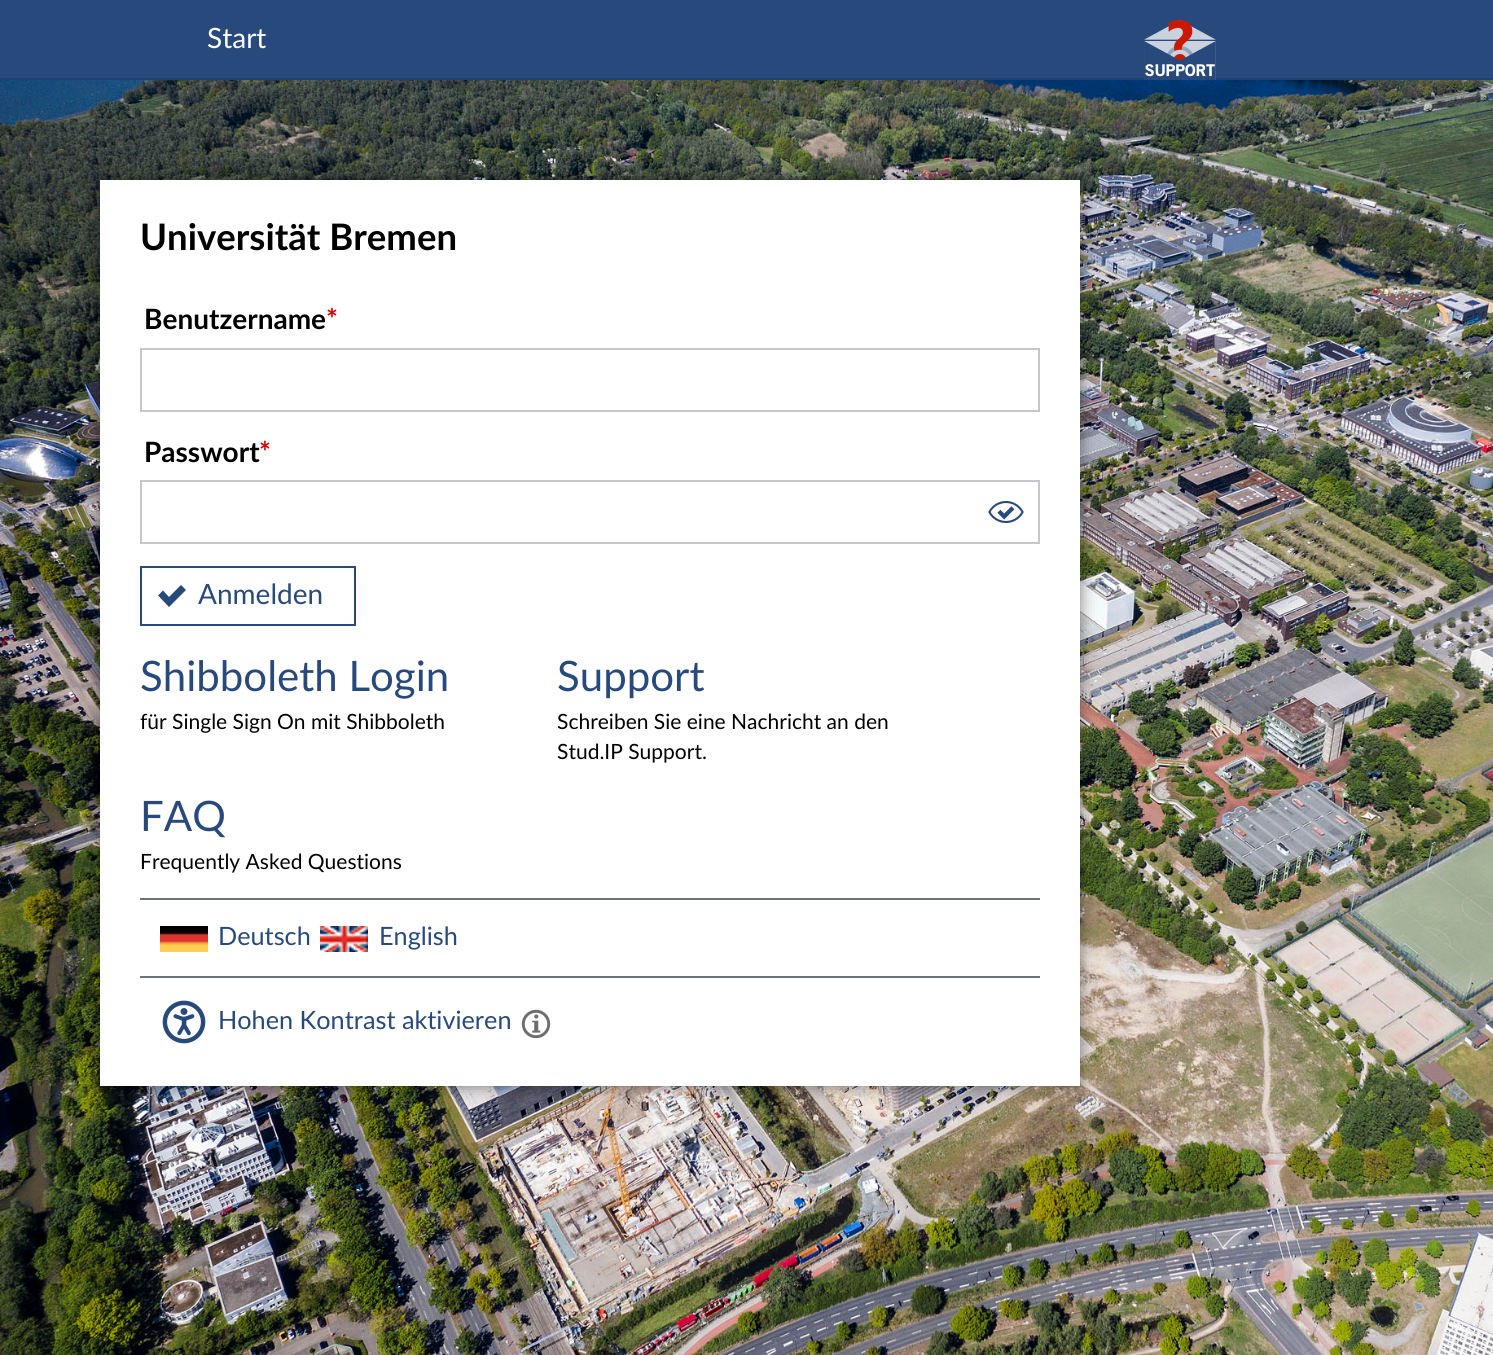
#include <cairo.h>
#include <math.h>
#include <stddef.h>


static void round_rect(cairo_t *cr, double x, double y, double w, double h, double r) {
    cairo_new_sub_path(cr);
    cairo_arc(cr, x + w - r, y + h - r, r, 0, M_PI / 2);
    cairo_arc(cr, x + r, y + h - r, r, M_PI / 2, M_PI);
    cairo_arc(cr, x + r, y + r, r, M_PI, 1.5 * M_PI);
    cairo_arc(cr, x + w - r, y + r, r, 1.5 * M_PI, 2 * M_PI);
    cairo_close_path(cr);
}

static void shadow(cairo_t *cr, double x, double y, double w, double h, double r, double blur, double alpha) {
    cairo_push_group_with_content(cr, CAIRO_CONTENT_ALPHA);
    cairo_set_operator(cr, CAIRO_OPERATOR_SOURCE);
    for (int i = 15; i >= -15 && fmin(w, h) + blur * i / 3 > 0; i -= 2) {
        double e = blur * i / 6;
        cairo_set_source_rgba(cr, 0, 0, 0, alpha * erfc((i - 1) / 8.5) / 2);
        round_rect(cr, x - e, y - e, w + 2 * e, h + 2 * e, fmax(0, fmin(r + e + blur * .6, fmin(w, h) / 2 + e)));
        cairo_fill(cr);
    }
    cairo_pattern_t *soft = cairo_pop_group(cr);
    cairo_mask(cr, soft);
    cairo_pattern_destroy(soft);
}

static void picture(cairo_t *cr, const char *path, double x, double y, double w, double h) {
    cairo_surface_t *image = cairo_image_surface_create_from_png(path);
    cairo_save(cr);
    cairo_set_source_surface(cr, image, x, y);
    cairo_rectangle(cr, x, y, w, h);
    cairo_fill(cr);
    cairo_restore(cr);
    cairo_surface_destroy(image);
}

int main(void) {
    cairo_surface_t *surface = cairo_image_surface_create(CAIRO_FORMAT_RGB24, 1493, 1355);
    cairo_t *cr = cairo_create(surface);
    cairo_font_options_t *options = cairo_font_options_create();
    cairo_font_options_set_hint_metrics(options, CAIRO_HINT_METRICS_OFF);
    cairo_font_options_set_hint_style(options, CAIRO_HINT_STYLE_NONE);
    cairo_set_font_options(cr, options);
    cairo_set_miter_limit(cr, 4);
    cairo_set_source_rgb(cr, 1, 1, 1);
    cairo_paint(cr);
    cairo_set_source_rgb(cr, 0.157, 0.286, 0.486);
    cairo_rectangle(cr, 0, 0, 1493, 78);
    cairo_fill(cr);
    cairo_set_source_rgb(cr, 0.122, 0.247, 0.439);
    cairo_rectangle(cr, 0, 78, 1493, 2);
    cairo_fill(cr);
    cairo_select_font_face(cr, "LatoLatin", CAIRO_FONT_SLANT_NORMAL, CAIRO_FONT_WEIGHT_NORMAL);
    cairo_set_font_size(cr, 28);
    cairo_set_source_rgb(cr, 1, 1, 1);
    cairo_move_to(cr, 207, 48);
    cairo_show_text(cr, "Start");
    picture(cr, "img1.png", 1144, 20, 72, 60);
    picture(cr, "img2.png", 0, 80, 1493, 1275);
    cairo_set_source_rgb(cr, 0, 0, 0);
    shadow(cr, 100, 180, 980, 906, 0, 8, 0.5);
    cairo_set_source_rgb(cr, 1, 1, 1);
    cairo_rectangle(cr, 100, 180, 980, 906);
    cairo_fill(cr);
    cairo_select_font_face(cr, "LatoLatin", CAIRO_FONT_SLANT_NORMAL, CAIRO_FONT_WEIGHT_BOLD);
    cairo_set_font_size(cr, 36.5);
    cairo_set_source_rgb(cr, 0, 0, 0);
    cairo_move_to(cr, 140, 250);
    cairo_show_text(cr, "Universität Bremen");
    cairo_set_font_size(cr, 28);
    cairo_move_to(cr, 144, 329);
    cairo_show_text(cr, "Benutzername");
    cairo_set_source_rgb(cr, 0.839, 0, 0);
    cairo_move_to(cr, 326, 329);
    cairo_show_text(cr, "*");
    cairo_rectangle(cr, 141, 349, 898, 62);
    cairo_set_source_rgb(cr, 0.773, 0.78, 0.792);
    cairo_stroke(cr);
    cairo_set_source_rgb(cr, 0, 0, 0);
    cairo_move_to(cr, 144, 462);
    cairo_show_text(cr, "Passwort");
    cairo_set_source_rgb(cr, 0.839, 0, 0);
    cairo_move_to(cr, 259, 462);
    cairo_show_text(cr, "*");
    cairo_rectangle(cr, 141, 481, 898, 62);
    cairo_set_source_rgb(cr, 0.773, 0.78, 0.792);
    cairo_stroke(cr);
    picture(cr, "img3.png", 988, 501, 36, 22);
    cairo_rectangle(cr, 141, 567, 214, 58);
    cairo_set_source_rgb(cr, 0.157, 0.286, 0.486);
    cairo_stroke(cr);
    cairo_new_path(cr);
    cairo_move_to(cr, 186, 590);
    cairo_line_to(cr, 181, 585);
    cairo_line_to(cr, 169, 597);
    cairo_line_to(cr, 163, 590.5);
    cairo_line_to(cr, 158, 595.5);
    cairo_line_to(cr, 169, 607);
    cairo_close_path(cr);
    cairo_fill(cr);
    cairo_select_font_face(cr, "LatoLatin", CAIRO_FONT_SLANT_NORMAL, CAIRO_FONT_WEIGHT_NORMAL);
    cairo_move_to(cr, 198, 604);
    cairo_show_text(cr, "Anmelden");
    cairo_set_font_size(cr, 42);
    cairo_move_to(cr, 140, 691);
    cairo_show_text(cr, "Shibboleth Login");
    cairo_set_font_size(cr, 21);
    cairo_set_source_rgb(cr, 0, 0, 0);
    cairo_move_to(cr, 140, 729);
    cairo_show_text(cr, "für Single Sign On mit Shibboleth");
    cairo_set_font_size(cr, 42);
    cairo_set_source_rgb(cr, 0.157, 0.286, 0.486);
    cairo_move_to(cr, 557, 691);
    cairo_show_text(cr, "Support");
    cairo_set_font_size(cr, 21);
    cairo_set_source_rgb(cr, 0, 0, 0);
    cairo_move_to(cr, 557, 729);
    cairo_show_text(cr, "Schreiben Sie eine Nachricht an den");
    cairo_move_to(cr, 557, 759);
    cairo_show_text(cr, "Stud.IP Support.");
    cairo_set_font_size(cr, 42);
    cairo_set_source_rgb(cr, 0.157, 0.286, 0.486);
    cairo_move_to(cr, 140, 831);
    cairo_show_text(cr, "FAQ");
    cairo_set_font_size(cr, 21);
    cairo_set_source_rgb(cr, 0, 0, 0);
    cairo_move_to(cr, 140, 869);
    cairo_show_text(cr, "Frequently Asked Questions");
    cairo_set_source_rgb(cr, 0.427, 0.447, 0.478);
    cairo_rectangle(cr, 140, 898, 900, 2);
    cairo_fill(cr);
    picture(cr, "img4.png", 160, 926, 48, 26);
    cairo_set_font_size(cr, 25.25);
    cairo_set_source_rgb(cr, 0.157, 0.286, 0.486);
    cairo_move_to(cr, 218, 945);
    cairo_show_text(cr, "Deutsch");
    picture(cr, "img5.png", 320, 926, 48, 26);
    cairo_move_to(cr, 379, 945);
    cairo_show_text(cr, "English");
    cairo_set_source_rgb(cr, 0.427, 0.447, 0.478);
    cairo_rectangle(cr, 140, 976, 900, 2);
    cairo_fill(cr);
    picture(cr, "img6.png", 162, 1000, 44, 44);
    cairo_set_source_rgb(cr, 0.157, 0.286, 0.486);
    cairo_move_to(cr, 218, 1029);
    cairo_show_text(cr, "Hohen Kontrast aktivieren");
    picture(cr, "img7.png", 521, 1009, 30, 30);
    cairo_surface_write_to_png(surface, "page.png");
    cairo_font_options_destroy(options);
    cairo_destroy(cr);
    cairo_surface_destroy(surface);
    return 0;
}
